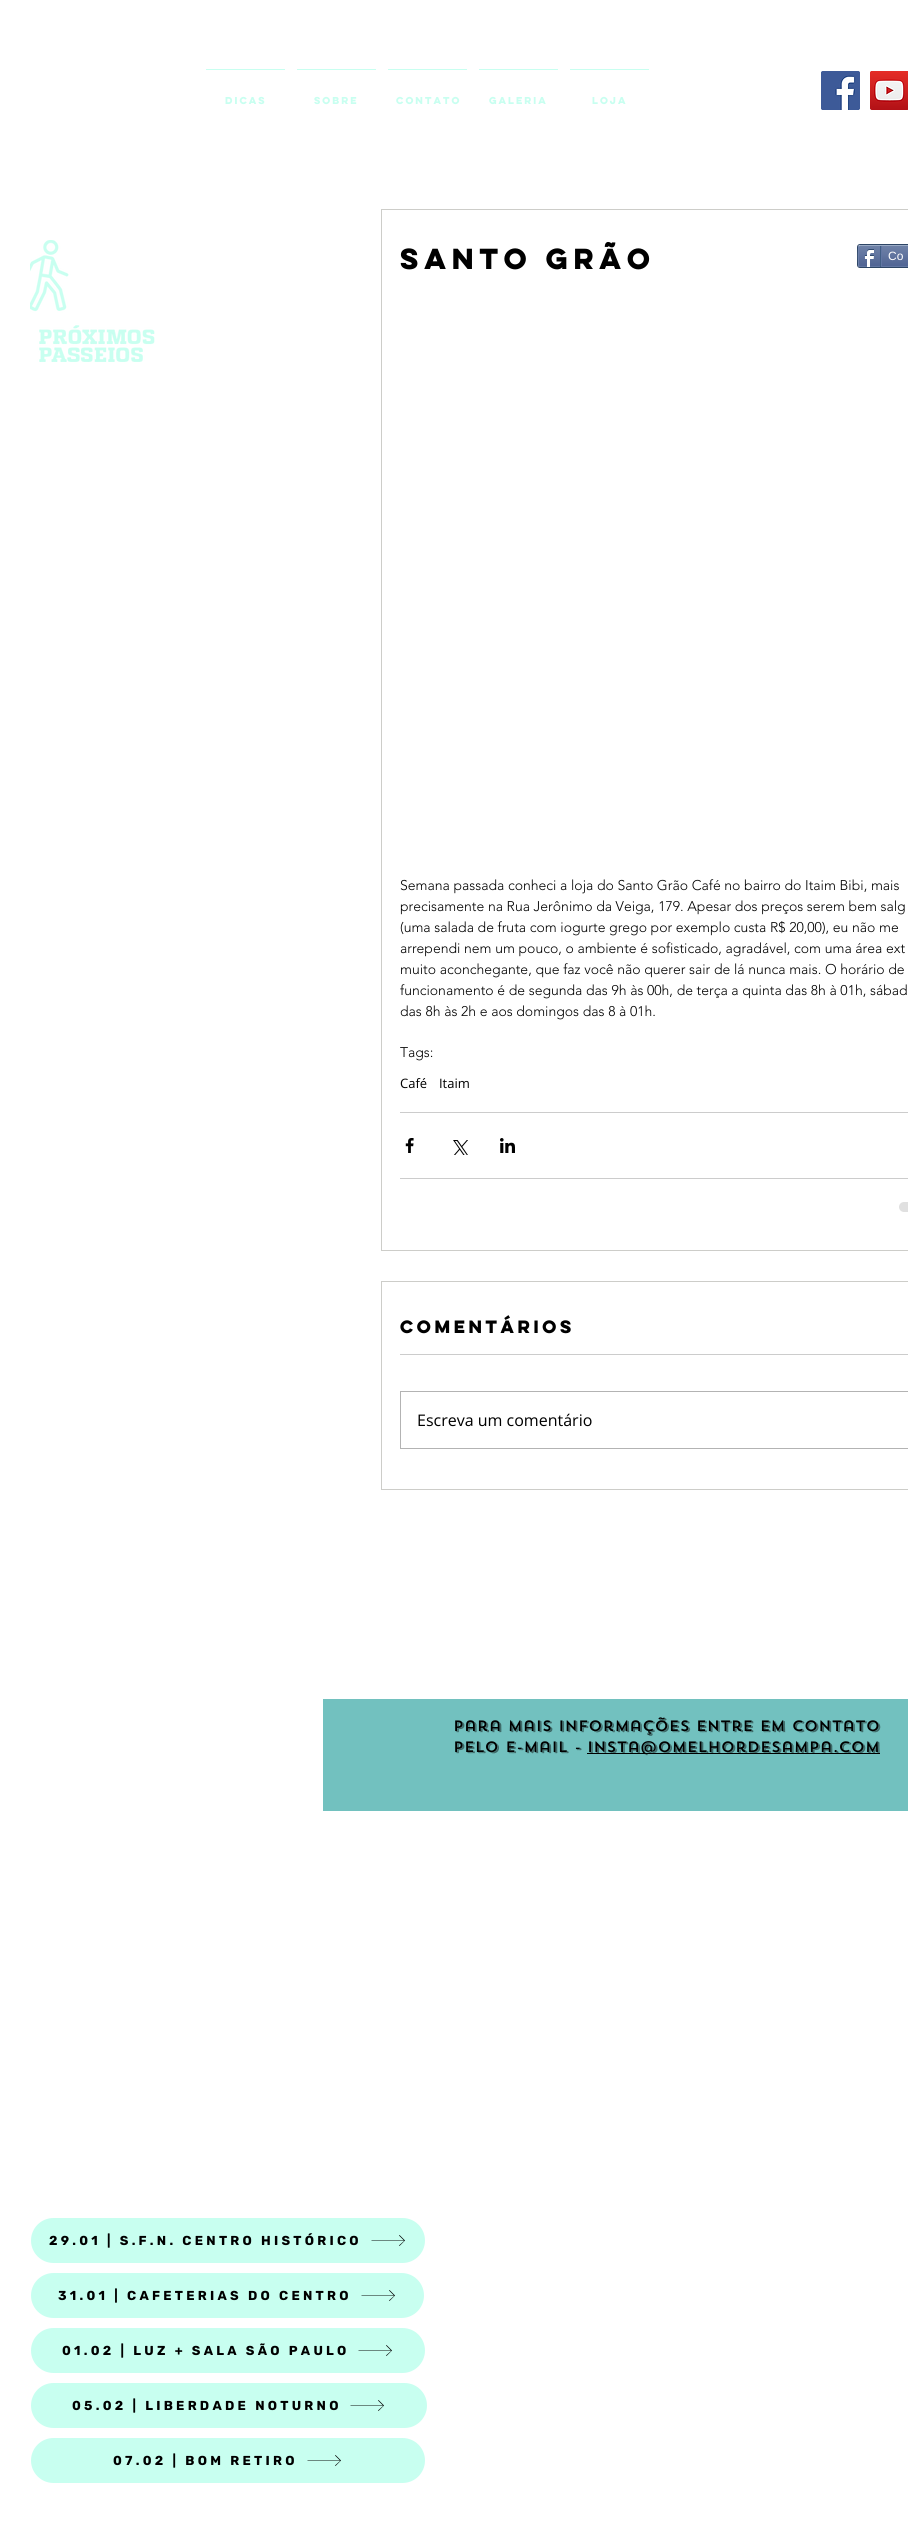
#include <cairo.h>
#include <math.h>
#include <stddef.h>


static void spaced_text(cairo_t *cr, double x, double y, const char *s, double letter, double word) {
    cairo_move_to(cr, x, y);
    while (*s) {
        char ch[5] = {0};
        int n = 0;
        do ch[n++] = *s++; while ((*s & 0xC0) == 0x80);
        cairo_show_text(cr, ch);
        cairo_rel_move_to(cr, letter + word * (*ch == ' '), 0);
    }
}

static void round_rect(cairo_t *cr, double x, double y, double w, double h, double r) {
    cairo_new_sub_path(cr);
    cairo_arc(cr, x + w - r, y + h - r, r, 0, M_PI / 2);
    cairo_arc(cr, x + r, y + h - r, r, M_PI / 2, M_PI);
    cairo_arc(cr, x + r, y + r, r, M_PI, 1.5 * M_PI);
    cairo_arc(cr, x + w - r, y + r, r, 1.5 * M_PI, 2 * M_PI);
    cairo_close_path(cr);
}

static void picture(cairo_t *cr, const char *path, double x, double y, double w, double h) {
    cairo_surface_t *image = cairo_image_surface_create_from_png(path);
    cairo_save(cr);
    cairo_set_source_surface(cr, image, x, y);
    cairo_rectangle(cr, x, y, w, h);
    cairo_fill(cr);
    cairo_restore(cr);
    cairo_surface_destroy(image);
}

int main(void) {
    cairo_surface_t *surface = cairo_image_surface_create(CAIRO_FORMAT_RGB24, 908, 2523);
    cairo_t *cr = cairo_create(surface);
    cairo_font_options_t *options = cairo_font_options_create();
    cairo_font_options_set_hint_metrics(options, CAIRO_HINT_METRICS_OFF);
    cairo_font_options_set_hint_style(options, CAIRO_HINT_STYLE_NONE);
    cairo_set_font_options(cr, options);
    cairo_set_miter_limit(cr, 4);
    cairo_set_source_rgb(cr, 1, 1, 1);
    cairo_paint(cr);
    cairo_set_source_rgb(cr, 0.784, 1, 0.941);
    cairo_rectangle(cr, 206, 69, 79, 1);
    cairo_fill(cr);
    cairo_select_font_face(cr, "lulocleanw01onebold", CAIRO_FONT_SLANT_NORMAL, CAIRO_FONT_WEIGHT_BOLD);
    cairo_set_font_size(cr, 9);
    cairo_move_to(cr, 225, 104);
    cairo_show_text(cr, "DICAS");
    cairo_rectangle(cr, 297, 69, 79, 1);
    cairo_fill(cr);
    cairo_move_to(cr, 314, 104);
    cairo_show_text(cr, "SOBRE");
    cairo_rectangle(cr, 388, 69, 79, 1);
    cairo_fill(cr);
    cairo_move_to(cr, 396, 104);
    cairo_show_text(cr, "CONTATO");
    cairo_rectangle(cr, 479, 69, 79, 1);
    cairo_fill(cr);
    cairo_move_to(cr, 489, 104);
    cairo_show_text(cr, "GALERIA");
    cairo_rectangle(cr, 570, 69, 79, 1);
    cairo_fill(cr);
    cairo_move_to(cr, 592, 104);
    cairo_show_text(cr, "Loja");
    picture(cr, "img1.png", 821, 71, 39, 39);
    picture(cr, "img2.png", 870, 71, 38, 39);
    picture(cr, "img3.png", 30, 240, 125, 122);
    cairo_rectangle(cr, 381.5, 209.5, 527, 1041);
    cairo_set_source_rgb(cr, 0.804, 0.804, 0.788);
    cairo_set_line_width(cr, 1);
    cairo_stroke(cr);
    cairo_set_font_size(cr, 26);
    cairo_set_source_rgb(cr, 0, 0, 0);
    cairo_move_to(cr, 400, 269);
    cairo_show_text(cr, "SANTO GRÃO");
    cairo_select_font_face(cr, "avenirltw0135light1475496 Light", CAIRO_FONT_SLANT_NORMAL, CAIRO_FONT_WEIGHT_NORMAL);
    cairo_set_font_size(cr, 14);
    cairo_move_to(cr, 400, 890);
    cairo_show_text(cr, "Semana passada conheci a loja do Santo Grão Café no bairro do Itaim Bibi, mais");
    cairo_move_to(cr, 400, 911);
    cairo_show_text(cr, "precisamente na Rua Jerônimo da Veiga, 179. Apesar dos preços serem bem salg");
    cairo_move_to(cr, 400, 932);
    cairo_show_text(cr, "(uma salada de fruta com iogurte grego por exemplo custa R$ 20,00), eu não me");
    cairo_move_to(cr, 400, 953);
    cairo_show_text(cr, "arrependi nem um pouco, o ambiente é sofisticado, agradável, com uma área ext");
    cairo_move_to(cr, 400, 974);
    cairo_show_text(cr, "muito aconchegante, que faz você não querer sair de lá nunca mais. O horário de");
    cairo_move_to(cr, 400, 995);
    cairo_show_text(cr, "funcionamento é de segunda das 9h às 00h, de terça a quinta das 8h à 01h, sábad");
    cairo_move_to(cr, 400, 1016);
    cairo_show_text(cr, "das 8h às 2h e aos domingos das 8 à 01h.");
    cairo_move_to(cr, 400, 1057);
    cairo_show_text(cr, "Tags:");
    cairo_select_font_face(cr, "Open Sans", CAIRO_FONT_SLANT_NORMAL, CAIRO_FONT_WEIGHT_NORMAL);
    cairo_set_font_size(cr, 13);
    cairo_move_to(cr, 400, 1088);
    cairo_show_text(cr, "Café");
    cairo_move_to(cr, 439, 1088);
    cairo_show_text(cr, "Itaim");
    cairo_set_source_rgb(cr, 0.8, 0.8, 0.8);
    cairo_rectangle(cr, 400, 1112, 508, 1);
    cairo_fill(cr);
    picture(cr, "img4.png", 405, 1138, 9, 15);
    picture(cr, "img5.png", 453, 1140, 15, 15);
    picture(cr, "img6.png", 500, 1138, 15, 15);
    cairo_rectangle(cr, 400, 1178, 508, 1);
    cairo_fill(cr);
    cairo_set_source_rgb(cr, 0.878, 0.878, 0.878);
    round_rect(cr, 899, 1202, 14, 10, 5);
    cairo_fill(cr);
    cairo_rectangle(cr, 381.5, 1281.5, 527, 208);
    cairo_set_source_rgb(cr, 0.804, 0.804, 0.788);
    cairo_stroke(cr);
    cairo_select_font_face(cr, "lulocleanw01onebold", CAIRO_FONT_SLANT_NORMAL, CAIRO_FONT_WEIGHT_BOLD);
    cairo_set_font_size(cr, 16);
    cairo_set_source_rgb(cr, 0, 0, 0);
    cairo_move_to(cr, 400, 1333);
    cairo_show_text(cr, "Comentários");
    cairo_set_source_rgb(cr, 0.8, 0.8, 0.8);
    cairo_rectangle(cr, 400, 1354, 508, 1);
    cairo_fill(cr);
    cairo_rectangle(cr, 400.5, 1391.5, 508, 57);
    cairo_set_source_rgb(cr, 0.702, 0.702, 0.702);
    cairo_stroke(cr);
    cairo_select_font_face(cr, "Open Sans", CAIRO_FONT_SLANT_NORMAL, CAIRO_FONT_WEIGHT_NORMAL);
    cairo_set_source_rgb(cr, 0, 0, 0);
    cairo_move_to(cr, 417, 1426);
    cairo_show_text(cr, "Escreva um comentário");
    round_rect(cr, 857.5, 244.5, 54, 23, 2.5);
    cairo_set_source_rgb(cr, 0.176, 0.271, 0.396);
    cairo_stroke(cr);
    picture(cr, "img7.png", 858, 246, 50, 21);
    cairo_new_path(cr);
    cairo_move_to(cr, 859, 246);
    cairo_line_to(cr, 860, 245.5);
    cairo_line_to(cr, 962, 245.5);
    cairo_line_to(cr, 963, 246);
    cairo_set_source_rgb(cr, 0.604, 0.671, 0.776);
    cairo_stroke(cr);
    cairo_new_path(cr);
    cairo_move_to(cr, 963, 266);
    cairo_line_to(cr, 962, 266.5);
    cairo_line_to(cr, 860, 266.5);
    cairo_line_to(cr, 859, 266);
    cairo_set_source_rgb(cr, 0.38, 0.463, 0.639);
    cairo_stroke(cr);
    cairo_new_path(cr);
    cairo_move_to(cr, 859, 266);
    cairo_curve_to(cr, 858, 265.5, 858, 246.5, 859, 246);
    cairo_set_source_rgb(cr, 0.435, 0.514, 0.678);
    cairo_stroke(cr);
    picture(cr, "img8.png", 864, 249, 10, 18);
    cairo_set_source_rgb(cr, 0.259, 0.369, 0.522);
    cairo_rectangle(cr, 880, 246, 1, 21);
    cairo_fill(cr);
    cairo_select_font_face(cr, "Liberation Sans", CAIRO_FONT_SLANT_NORMAL, CAIRO_FONT_WEIGHT_NORMAL);
    cairo_set_font_size(cr, 12);
    cairo_set_source_rgb(cr, 1, 1, 1);
    cairo_move_to(cr, 888, 260);
    cairo_show_text(cr, "Co");
    cairo_set_source_rgb(cr, 0.38, 0.463, 0.639);
    cairo_rectangle(cr, 881, 246, 1, 20);
    cairo_fill(cr);
    cairo_set_source_rgb(cr, 0.447, 0.757, 0.749);
    cairo_rectangle(cr, 323, 1699, 585, 112);
    cairo_fill(cr);
    cairo_select_font_face(cr, "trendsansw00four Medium", CAIRO_FONT_SLANT_NORMAL, CAIRO_FONT_WEIGHT_NORMAL);
    cairo_set_font_size(cr, 15);
    cairo_set_source_rgb(cr, 0, 0, 0);
    cairo_move_to(cr, 453, 1731);
    cairo_show_text(cr, "Para mais informações entre em contato");
    cairo_move_to(cr, 453, 1752);
    cairo_show_text(cr, "pelo e-mail -");
    cairo_rectangle(cr, 587, 1753, 293, 1);
    cairo_fill(cr);
    cairo_move_to(cr, 587, 1752);
    cairo_show_text(cr, "insta@omelhordesampa.com");
    cairo_set_source_rgb(cr, 0.784, 1, 0.941);
    round_rect(cr, 31, 2218, 394, 45, 22.5);
    cairo_fill(cr);
    cairo_select_font_face(cr, "Rubik", CAIRO_FONT_SLANT_NORMAL, CAIRO_FONT_WEIGHT_BOLD);
    cairo_set_font_size(cr, 13);
    cairo_set_source_rgb(cr, 0, 0, 0);
    spaced_text(cr, 49, 2245, "29.01 | S.F.N. CENTRO HISTÓRICO", 3.25, 0);
    cairo_new_path(cr);
    cairo_move_to(cr, 399.5, 2235);
    cairo_line_to(cr, 399, 2235.5);
    cairo_line_to(cr, 404, 2240.5);
    cairo_line_to(cr, 371.5, 2240.5);
    cairo_line_to(cr, 371.5, 2241);
    cairo_line_to(cr, 404, 2241);
    cairo_line_to(cr, 399, 2245.5);
    cairo_line_to(cr, 399.5, 2246);
    cairo_line_to(cr, 405, 2240.5);
    cairo_close_path(cr);
    cairo_fill(cr);
    cairo_set_source_rgb(cr, 0.784, 1, 0.941);
    round_rect(cr, 31, 2273, 393, 45, 22.5);
    cairo_fill(cr);
    cairo_set_source_rgb(cr, 0, 0, 0);
    spaced_text(cr, 58, 2300, "31.01 | CAFETERIAS DO CENTRO", 3.25, 0);
    cairo_new_path(cr);
    cairo_move_to(cr, 389.5, 2290);
    cairo_line_to(cr, 389, 2290.5);
    cairo_line_to(cr, 394, 2295.5);
    cairo_line_to(cr, 361.5, 2295.5);
    cairo_line_to(cr, 361.5, 2296);
    cairo_line_to(cr, 394, 2296);
    cairo_line_to(cr, 389, 2300.5);
    cairo_line_to(cr, 389.5, 2301);
    cairo_line_to(cr, 395, 2295.5);
    cairo_close_path(cr);
    cairo_fill(cr);
    cairo_set_source_rgb(cr, 0.784, 1, 0.941);
    round_rect(cr, 31, 2328, 394, 45, 22.5);
    cairo_fill(cr);
    cairo_set_source_rgb(cr, 0, 0, 0);
    spaced_text(cr, 62, 2355, "01.02 | LUZ + SALA SÃO PAULO", 3.25, 0);
    cairo_new_path(cr);
    cairo_move_to(cr, 386.5, 2345);
    cairo_line_to(cr, 386, 2345.5);
    cairo_line_to(cr, 391, 2350.5);
    cairo_line_to(cr, 358.5, 2350.5);
    cairo_line_to(cr, 358.5, 2351);
    cairo_line_to(cr, 391, 2351);
    cairo_line_to(cr, 386, 2355.5);
    cairo_line_to(cr, 386.5, 2356);
    cairo_line_to(cr, 392, 2350.5);
    cairo_close_path(cr);
    cairo_fill(cr);
    cairo_set_source_rgb(cr, 0.784, 1, 0.941);
    round_rect(cr, 31, 2383, 396, 45, 22.5);
    cairo_fill(cr);
    cairo_set_source_rgb(cr, 0, 0, 0);
    spaced_text(cr, 72, 2410, "05.02 | LIBERDADE NOTURNO", 3.25, 0);
    cairo_new_path(cr);
    cairo_move_to(cr, 378.5, 2400);
    cairo_line_to(cr, 378, 2400.5);
    cairo_line_to(cr, 383, 2405.5);
    cairo_line_to(cr, 350.5, 2405.5);
    cairo_line_to(cr, 350.5, 2406);
    cairo_line_to(cr, 383, 2406);
    cairo_line_to(cr, 378, 2410.5);
    cairo_line_to(cr, 378.5, 2411);
    cairo_line_to(cr, 384, 2405.5);
    cairo_close_path(cr);
    cairo_fill(cr);
    cairo_set_source_rgb(cr, 0.784, 1, 0.941);
    round_rect(cr, 31, 2438, 394, 45, 22.5);
    cairo_fill(cr);
    cairo_set_source_rgb(cr, 0, 0, 0);
    spaced_text(cr, 113, 2465, "07.02 | BOM RETIRO", 3.25, 0);
    cairo_new_path(cr);
    cairo_move_to(cr, 335.5, 2455);
    cairo_line_to(cr, 335, 2455.5);
    cairo_line_to(cr, 340, 2460.5);
    cairo_line_to(cr, 307.5, 2460.5);
    cairo_line_to(cr, 307.5, 2461);
    cairo_line_to(cr, 340, 2461);
    cairo_line_to(cr, 335, 2465.5);
    cairo_line_to(cr, 335.5, 2466);
    cairo_line_to(cr, 341, 2460.5);
    cairo_close_path(cr);
    cairo_fill(cr);
    cairo_surface_write_to_png(surface, "page.png");
    cairo_font_options_destroy(options);
    cairo_destroy(cr);
    cairo_surface_destroy(surface);
    return 0;
}
